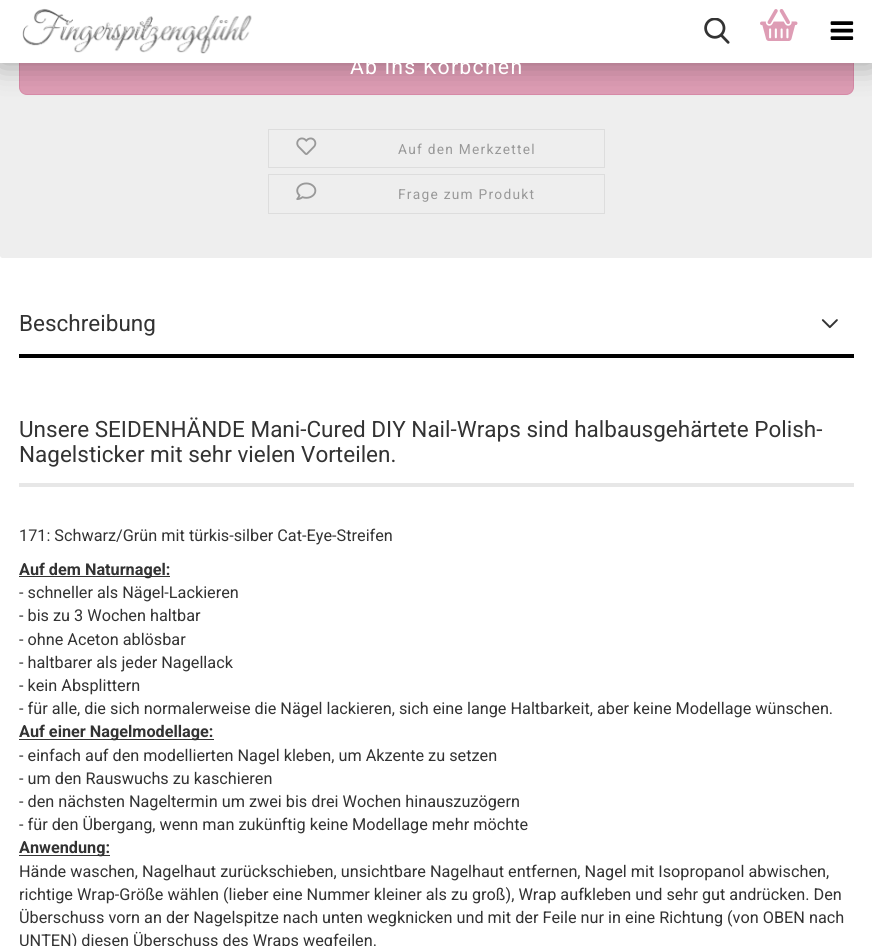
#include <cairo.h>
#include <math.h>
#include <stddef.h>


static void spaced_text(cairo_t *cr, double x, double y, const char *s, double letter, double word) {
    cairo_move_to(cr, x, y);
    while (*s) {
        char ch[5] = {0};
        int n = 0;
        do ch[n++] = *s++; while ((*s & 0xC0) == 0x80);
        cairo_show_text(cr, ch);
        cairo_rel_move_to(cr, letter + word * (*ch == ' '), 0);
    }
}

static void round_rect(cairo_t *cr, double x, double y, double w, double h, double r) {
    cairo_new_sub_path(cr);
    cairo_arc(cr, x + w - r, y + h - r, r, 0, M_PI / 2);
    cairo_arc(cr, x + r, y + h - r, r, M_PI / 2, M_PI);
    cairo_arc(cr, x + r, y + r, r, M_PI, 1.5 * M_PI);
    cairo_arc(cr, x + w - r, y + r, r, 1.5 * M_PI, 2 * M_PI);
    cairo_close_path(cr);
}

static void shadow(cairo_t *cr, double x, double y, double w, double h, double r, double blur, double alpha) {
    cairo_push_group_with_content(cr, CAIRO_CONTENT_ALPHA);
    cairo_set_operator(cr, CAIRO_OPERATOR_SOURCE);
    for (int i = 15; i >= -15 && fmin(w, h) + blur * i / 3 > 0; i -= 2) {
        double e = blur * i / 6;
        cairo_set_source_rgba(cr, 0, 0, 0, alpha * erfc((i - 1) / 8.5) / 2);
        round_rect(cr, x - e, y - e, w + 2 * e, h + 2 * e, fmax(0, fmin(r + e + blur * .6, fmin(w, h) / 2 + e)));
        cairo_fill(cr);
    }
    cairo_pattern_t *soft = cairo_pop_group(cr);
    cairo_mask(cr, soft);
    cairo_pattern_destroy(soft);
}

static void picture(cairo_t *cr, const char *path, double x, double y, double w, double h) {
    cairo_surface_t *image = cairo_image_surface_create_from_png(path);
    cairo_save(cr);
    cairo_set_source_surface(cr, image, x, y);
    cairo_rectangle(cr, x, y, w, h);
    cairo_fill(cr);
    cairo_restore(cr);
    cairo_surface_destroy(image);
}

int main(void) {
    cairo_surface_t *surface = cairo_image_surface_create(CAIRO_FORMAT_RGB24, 872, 946);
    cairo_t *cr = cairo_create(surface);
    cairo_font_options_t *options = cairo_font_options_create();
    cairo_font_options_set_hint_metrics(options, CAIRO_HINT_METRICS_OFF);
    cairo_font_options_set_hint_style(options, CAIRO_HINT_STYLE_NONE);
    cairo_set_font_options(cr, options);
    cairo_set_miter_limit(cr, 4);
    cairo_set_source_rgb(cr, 1, 1, 1);
    cairo_paint(cr);
    cairo_set_source_rgb(cr, 0.933, 0.933, 0.933);
    round_rect(cr, 0, -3, 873, 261, 2.5);
    cairo_fill(cr);
    cairo_set_source_rgb(cr, 0.871, 0.616, 0.71);
    round_rect(cr, 19.5, 39.5, 834, 55, 7.5);
    cairo_fill_preserve(cr);
    cairo_set_source_rgb(cr, 0.847, 0.541, 0.655);
    cairo_set_line_width(cr, 1);
    cairo_stroke(cr);
    cairo_set_source_rgb(cr, 0, 0, 0);
    shadow(cr, 0, 0, 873, 63, 0, 15.5, 0.35);
    cairo_set_source_rgb(cr, 1, 1, 1);
    cairo_rectangle(cr, 0, 0, 872, 63);
    cairo_fill(cr);
    picture(cr, "img1.png", 22, 8, 230, 46);
    picture(cr, "img2.png", 704, 18, 26, 26);
    picture(cr, "img3.png", 760, 9, 38, 32);
    picture(cr, "img4.png", 830, 21, 24, 19);
    cairo_select_font_face(cr, "Roboto", CAIRO_FONT_SLANT_NORMAL, CAIRO_FONT_WEIGHT_NORMAL);
    cairo_set_font_size(cr, 21.25);
    spaced_text(cr, 350, 74, "Ab ins Körbchen", 1.25, 0);
    cairo_rectangle(cr, 268.5, 129.5, 336, 38);
    cairo_set_source_rgb(cr, 0.867, 0.867, 0.867);
    cairo_stroke(cr);
    picture(cr, "img5.png", 296, 137, 21, 18);
    cairo_set_font_size(cr, 13.75);
    cairo_set_source_rgb(cr, 0.6, 0.6, 0.6);
    spaced_text(cr, 398, 154, "Auf den Merkzettel", 1.25, 0);
    cairo_rectangle(cr, 268.5, 174.5, 336, 39);
    cairo_set_source_rgb(cr, 0.867, 0.867, 0.867);
    cairo_stroke(cr);
    picture(cr, "img6.png", 296, 182, 21, 18);
    cairo_set_source_rgb(cr, 0.6, 0.6, 0.6);
    spaced_text(cr, 398, 199, "Frage zum Produkt", 1.25, 0);
    cairo_set_source_rgb(cr, 0, 0, 0);
    cairo_rectangle(cr, 19, 354, 835, 4);
    cairo_fill(cr);
    cairo_set_font_size(cr, 22.5);
    cairo_set_source_rgb(cr, 0.2, 0.2, 0.2);
    cairo_move_to(cr, 19, 331);
    cairo_show_text(cr, "Beschreibung");
    picture(cr, "img7.png", 821, 319, 17, 10);
    cairo_set_source_rgb(cr, 0.906, 0.906, 0.906);
    cairo_rectangle(cr, 19, 483, 835, 4);
    cairo_fill(cr);
    cairo_set_source_rgb(cr, 0.2, 0.2, 0.2);
    cairo_move_to(cr, 19, 437);
    cairo_show_text(cr, "Unsere SEIDENHÄNDE Mani-Cured DIY Nail-Wraps sind halbausgehärtete Polish-");
    cairo_move_to(cr, 19, 462);
    cairo_show_text(cr, "Nagelsticker mit sehr vielen Vorteilen.");
    cairo_set_font_size(cr, 16.25);
    cairo_move_to(cr, 19, 541);
    cairo_show_text(cr, "171: Schwarz/Grün mit türkis-silber Cat-Eye-Streifen");
    cairo_rectangle(cr, 19, 576, 151, 1);
    cairo_fill(cr);
    cairo_select_font_face(cr, "Roboto", CAIRO_FONT_SLANT_NORMAL, CAIRO_FONT_WEIGHT_BOLD);
    cairo_move_to(cr, 19, 575);
    cairo_show_text(cr, "Auf dem Naturnagel:");
    cairo_select_font_face(cr, "Roboto", CAIRO_FONT_SLANT_NORMAL, CAIRO_FONT_WEIGHT_NORMAL);
    cairo_move_to(cr, 19, 598);
    cairo_show_text(cr, "- schneller als Nägel-Lackieren");
    cairo_move_to(cr, 19, 621);
    cairo_show_text(cr, "- bis zu 3 Wochen haltbar");
    cairo_move_to(cr, 19, 645);
    cairo_show_text(cr, "- ohne Aceton ablösbar");
    cairo_move_to(cr, 19, 668);
    cairo_show_text(cr, "- haltbarer als jeder Nagellack");
    cairo_move_to(cr, 19, 691);
    cairo_show_text(cr, "- kein Absplittern");
    cairo_move_to(cr, 19, 714);
    cairo_show_text(cr, "- für alle, die sich normalerweise die Nägel lackieren, sich eine lange Haltbarkeit, aber keine Modellage wünschen.");
    cairo_rectangle(cr, 19, 739, 195, 1);
    cairo_fill(cr);
    cairo_select_font_face(cr, "Roboto", CAIRO_FONT_SLANT_NORMAL, CAIRO_FONT_WEIGHT_BOLD);
    cairo_move_to(cr, 19, 737);
    cairo_show_text(cr, "Auf einer Nagelmodellage:");
    cairo_select_font_face(cr, "Roboto", CAIRO_FONT_SLANT_NORMAL, CAIRO_FONT_WEIGHT_NORMAL);
    cairo_move_to(cr, 19, 761);
    cairo_show_text(cr, "- einfach auf den modellierten Nagel kleben, um Akzente zu setzen");
    cairo_move_to(cr, 19, 784);
    cairo_show_text(cr, "- um den Rauswuchs zu kaschieren");
    cairo_move_to(cr, 19, 807);
    cairo_show_text(cr, "- den nächsten Nageltermin um zwei bis drei Wochen hinauszuzögern");
    cairo_move_to(cr, 19, 830);
    cairo_show_text(cr, "- für den Übergang, wenn man zukünftig keine Modellage mehr möchte");
    cairo_rectangle(cr, 19, 855, 91, 1);
    cairo_fill(cr);
    cairo_select_font_face(cr, "Roboto", CAIRO_FONT_SLANT_NORMAL, CAIRO_FONT_WEIGHT_BOLD);
    cairo_move_to(cr, 19, 853);
    cairo_show_text(cr, "Anwendung:");
    cairo_select_font_face(cr, "Roboto", CAIRO_FONT_SLANT_NORMAL, CAIRO_FONT_WEIGHT_NORMAL);
    cairo_move_to(cr, 19, 877);
    cairo_show_text(cr, "Hände waschen, Nagelhaut zurückschieben, unsichtbare Nagelhaut entfernen, Nagel mit Isopropanol abwischen,");
    cairo_move_to(cr, 19, 900);
    cairo_show_text(cr, "richtige Wrap-Größe wählen (lieber eine Nummer kleiner als zu groß), Wrap aufkleben und sehr gut andrücken. Den");
    cairo_move_to(cr, 19, 923);
    cairo_show_text(cr, "Überschuss vorn an der Nagelspitze nach unten wegknicken und mit der Feile nur in eine Richtung (von OBEN nach");
    cairo_move_to(cr, 19, 946);
    cairo_show_text(cr, "UNTEN) diesen Überschuss des Wraps wegfeilen.");
    cairo_surface_write_to_png(surface, "page.png");
    cairo_font_options_destroy(options);
    cairo_destroy(cr);
    cairo_surface_destroy(surface);
    return 0;
}
